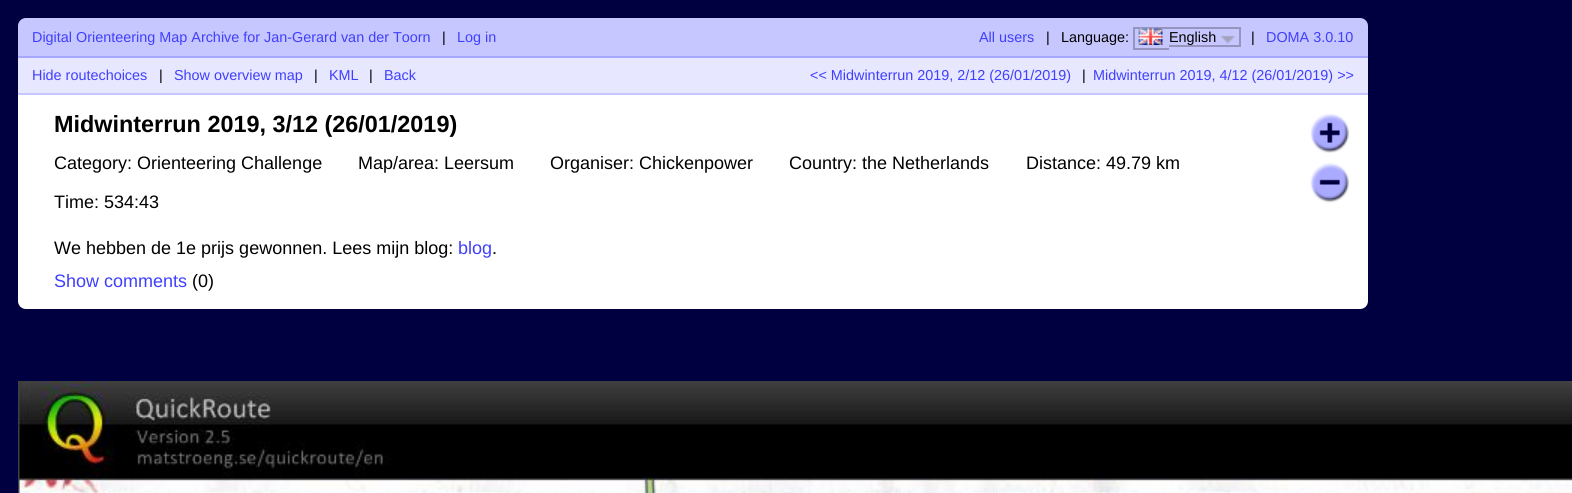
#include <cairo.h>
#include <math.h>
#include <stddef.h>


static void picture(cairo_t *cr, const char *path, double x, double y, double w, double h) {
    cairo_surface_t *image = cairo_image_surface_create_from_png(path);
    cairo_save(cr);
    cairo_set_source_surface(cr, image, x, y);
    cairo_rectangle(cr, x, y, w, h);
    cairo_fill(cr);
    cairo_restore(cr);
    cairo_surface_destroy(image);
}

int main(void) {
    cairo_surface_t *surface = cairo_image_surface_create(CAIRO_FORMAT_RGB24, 1572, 493);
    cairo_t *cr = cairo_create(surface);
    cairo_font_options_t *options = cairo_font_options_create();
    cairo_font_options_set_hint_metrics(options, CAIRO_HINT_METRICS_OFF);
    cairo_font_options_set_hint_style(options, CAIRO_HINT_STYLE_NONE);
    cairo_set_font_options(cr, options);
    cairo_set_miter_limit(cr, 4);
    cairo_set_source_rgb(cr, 0, 0, 0.251);
    cairo_paint(cr);
    cairo_set_source_rgb(cr, 0.78, 0.78, 1);
    cairo_new_path(cr);
    cairo_move_to(cr, 26, 18);
    cairo_line_to(cr, 1360, 18);
    cairo_curve_to(cr, 1364.5, 18, 1368, 21.5, 1368, 26);
    cairo_line_to(cr, 1368, 56);
    cairo_line_to(cr, 18, 56);
    cairo_line_to(cr, 18, 26);
    cairo_curve_to(cr, 18, 21.5, 21.5, 18, 26, 18);
    cairo_close_path(cr);
    cairo_fill(cr);
    cairo_select_font_face(cr, "Liberation Sans", CAIRO_FONT_SLANT_NORMAL, CAIRO_FONT_WEIGHT_NORMAL);
    cairo_set_font_size(cr, 14.4);
    cairo_set_source_rgb(cr, 0.247, 0.247, 1);
    cairo_move_to(cr, 32, 42);
    cairo_show_text(cr, "Digital Orienteering Map Archive for Jan-Gerard van der Toorn");
    cairo_set_source_rgb(cr, 0, 0, 0);
    cairo_move_to(cr, 442, 42);
    cairo_show_text(cr, "|");
    cairo_set_source_rgb(cr, 0.247, 0.247, 1);
    cairo_move_to(cr, 457, 42);
    cairo_show_text(cr, "Log in");
    cairo_move_to(cr, 979, 42);
    cairo_show_text(cr, "All users");
    cairo_set_source_rgb(cr, 0, 0, 0);
    cairo_move_to(cr, 1046, 42);
    cairo_show_text(cr, "|");
    cairo_move_to(cr, 1061, 42);
    cairo_show_text(cr, "Language:");
    cairo_set_source_rgb(cr, 0.584, 0.584, 0.749);
    cairo_rectangle(cr, 1133, 27, 108, 2);
    cairo_fill(cr);
    picture(cr, "img1.png", 1138, 28, 25, 17);
    cairo_set_source_rgb(cr, 0, 0, 0);
    cairo_move_to(cr, 1169, 42);
    cairo_show_text(cr, "English");
    cairo_set_source_rgb(cr, 0.584, 0.584, 0.749);
    cairo_rectangle(cr, 1133, 48, 36, 2);
    cairo_fill(cr);
    cairo_rectangle(cr, 1133, 27, 2, 23);
    cairo_fill(cr);
    cairo_rectangle(cr, 1239, 27, 2, 20);
    cairo_fill(cr);
    cairo_rectangle(cr, 1169, 45, 72, 2);
    cairo_fill(cr);
    picture(cr, "img2.png", 1221, 35, 14, 9);
    cairo_set_source_rgb(cr, 0, 0, 0);
    cairo_move_to(cr, 1251, 42);
    cairo_show_text(cr, "|");
    cairo_set_source_rgb(cr, 0.247, 0.247, 1);
    cairo_move_to(cr, 1266, 42);
    cairo_show_text(cr, "DOMA 3.0.10");
    cairo_set_source_rgb(cr, 0.906, 0.906, 1);
    cairo_rectangle(cr, 18, 58, 1350, 35);
    cairo_fill(cr);
    cairo_set_source_rgb(cr, 0.655, 0.655, 1);
    cairo_rectangle(cr, 18, 56, 1350, 2);
    cairo_fill(cr);
    cairo_set_source_rgb(cr, 0.78, 0.78, 1);
    cairo_rectangle(cr, 18, 93, 1350, 2);
    cairo_fill(cr);
    cairo_set_source_rgb(cr, 0.247, 0.247, 1);
    cairo_move_to(cr, 32, 80);
    cairo_show_text(cr, "Hide routechoices");
    cairo_set_source_rgb(cr, 0, 0, 0);
    cairo_move_to(cr, 159, 80);
    cairo_show_text(cr, "|");
    cairo_set_source_rgb(cr, 0.247, 0.247, 1);
    cairo_move_to(cr, 174, 80);
    cairo_show_text(cr, "Show overview map");
    cairo_set_source_rgb(cr, 0, 0, 0);
    cairo_move_to(cr, 314, 80);
    cairo_show_text(cr, "|");
    cairo_set_source_rgb(cr, 0.247, 0.247, 1);
    cairo_move_to(cr, 329, 80);
    cairo_show_text(cr, "KML");
    cairo_set_source_rgb(cr, 0, 0, 0);
    cairo_move_to(cr, 369, 80);
    cairo_show_text(cr, "|");
    cairo_set_source_rgb(cr, 0.247, 0.247, 1);
    cairo_move_to(cr, 384, 80);
    cairo_show_text(cr, "Back");
    cairo_move_to(cr, 810, 80);
    cairo_show_text(cr, "<< Midwinterrun 2019, 2/12 (26/01/2019)");
    cairo_set_source_rgb(cr, 0, 0, 0);
    cairo_move_to(cr, 1082, 80);
    cairo_show_text(cr, "|");
    cairo_set_source_rgb(cr, 0.247, 0.247, 1);
    cairo_move_to(cr, 1093, 80);
    cairo_show_text(cr, "Midwinterrun 2019, 4/12 (26/01/2019) >>");
    cairo_set_source_rgb(cr, 1, 1, 1);
    cairo_new_path(cr);
    cairo_move_to(cr, 18, 95);
    cairo_line_to(cr, 1368, 95);
    cairo_line_to(cr, 1368, 301);
    cairo_curve_to(cr, 1368, 305.5, 1364.5, 309, 1360, 309);
    cairo_line_to(cr, 26, 309);
    cairo_curve_to(cr, 21.5, 309, 18, 305.5, 18, 301);
    cairo_close_path(cr);
    cairo_fill(cr);
    cairo_select_font_face(cr, "Liberation Sans", CAIRO_FONT_SLANT_NORMAL, CAIRO_FONT_WEIGHT_BOLD);
    cairo_set_font_size(cr, 23.4);
    cairo_set_source_rgb(cr, 0, 0, 0);
    cairo_move_to(cr, 54, 132);
    cairo_show_text(cr, "Midwinterrun 2019, 3/12 (26/01/2019)");
    picture(cr, "img3.png", 1310, 114, 40, 39);
    picture(cr, "img4.png", 1310, 163, 40, 40);
    cairo_select_font_face(cr, "Liberation Sans", CAIRO_FONT_SLANT_NORMAL, CAIRO_FONT_WEIGHT_NORMAL);
    cairo_set_font_size(cr, 18);
    cairo_move_to(cr, 54, 169);
    cairo_show_text(cr, "Category: Orienteering Challenge");
    cairo_move_to(cr, 358, 169);
    cairo_show_text(cr, "Map/area: Leersum");
    cairo_move_to(cr, 550, 169);
    cairo_show_text(cr, "Organiser: Chickenpower");
    cairo_move_to(cr, 789, 169);
    cairo_show_text(cr, "Country: the Netherlands");
    cairo_move_to(cr, 1026, 169);
    cairo_show_text(cr, "Distance: 49.79 km");
    cairo_move_to(cr, 54, 208);
    cairo_show_text(cr, "Time: 534:43");
    cairo_move_to(cr, 54, 254);
    cairo_show_text(cr, "We hebben de 1e prijs gewonnen. Lees mijn blog:");
    cairo_set_source_rgb(cr, 0.247, 0.247, 1);
    cairo_move_to(cr, 458, 254);
    cairo_show_text(cr, "blog");
    cairo_set_source_rgb(cr, 0, 0, 0);
    cairo_move_to(cr, 492, 254);
    cairo_show_text(cr, ".");
    cairo_set_source_rgb(cr, 0.247, 0.247, 1);
    cairo_move_to(cr, 54, 287);
    cairo_show_text(cr, "Show comments");
    cairo_set_source_rgb(cr, 0, 0, 0);
    cairo_move_to(cr, 192, 287);
    cairo_show_text(cr, "(0)");
    picture(cr, "img5.png", 18, 381, 1554, 112);
    cairo_surface_write_to_png(surface, "page.png");
    cairo_font_options_destroy(options);
    cairo_destroy(cr);
    cairo_surface_destroy(surface);
    return 0;
}
